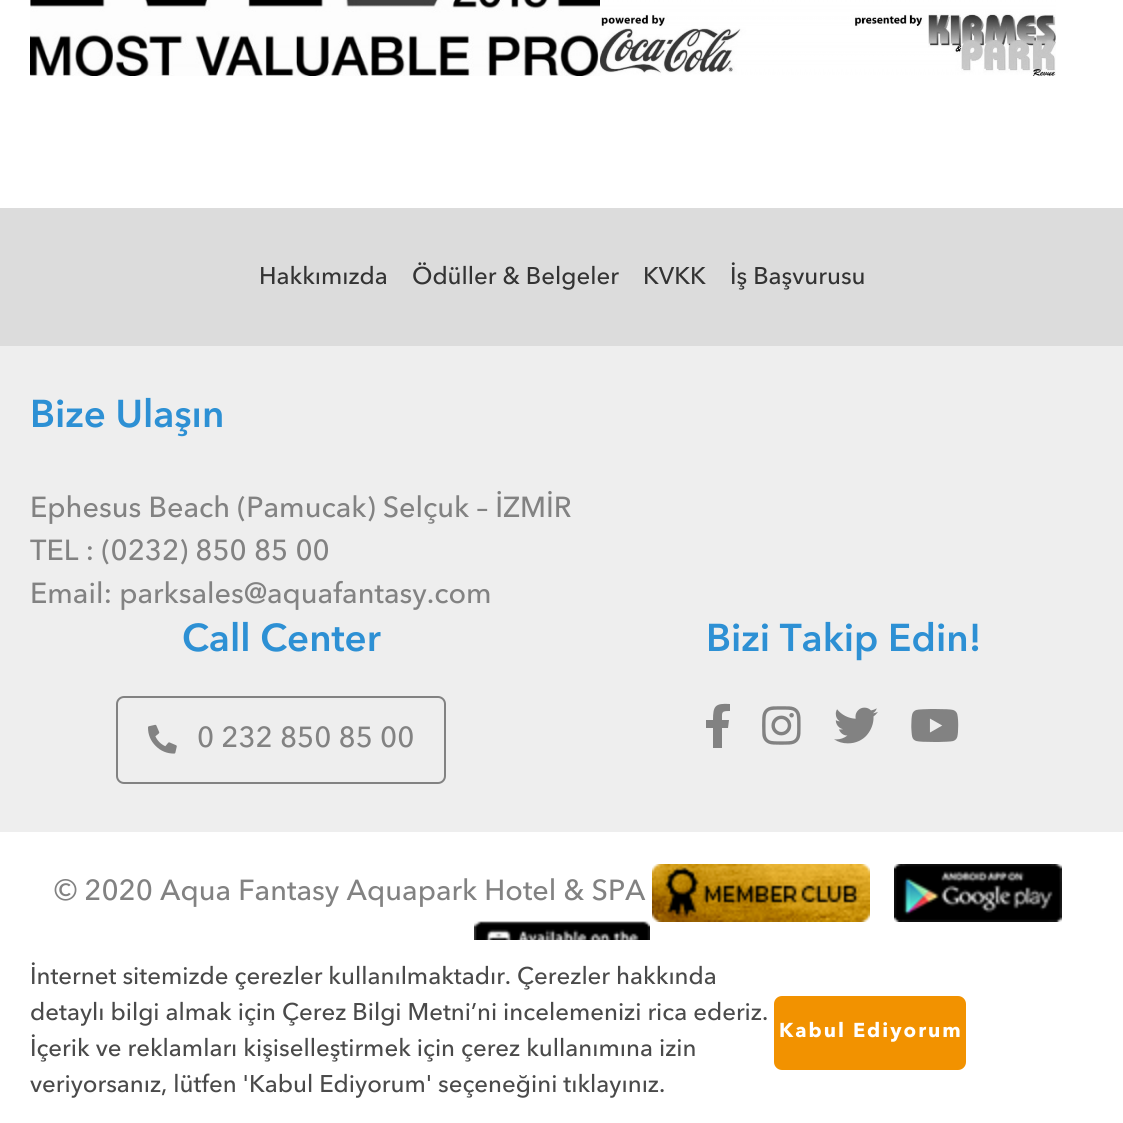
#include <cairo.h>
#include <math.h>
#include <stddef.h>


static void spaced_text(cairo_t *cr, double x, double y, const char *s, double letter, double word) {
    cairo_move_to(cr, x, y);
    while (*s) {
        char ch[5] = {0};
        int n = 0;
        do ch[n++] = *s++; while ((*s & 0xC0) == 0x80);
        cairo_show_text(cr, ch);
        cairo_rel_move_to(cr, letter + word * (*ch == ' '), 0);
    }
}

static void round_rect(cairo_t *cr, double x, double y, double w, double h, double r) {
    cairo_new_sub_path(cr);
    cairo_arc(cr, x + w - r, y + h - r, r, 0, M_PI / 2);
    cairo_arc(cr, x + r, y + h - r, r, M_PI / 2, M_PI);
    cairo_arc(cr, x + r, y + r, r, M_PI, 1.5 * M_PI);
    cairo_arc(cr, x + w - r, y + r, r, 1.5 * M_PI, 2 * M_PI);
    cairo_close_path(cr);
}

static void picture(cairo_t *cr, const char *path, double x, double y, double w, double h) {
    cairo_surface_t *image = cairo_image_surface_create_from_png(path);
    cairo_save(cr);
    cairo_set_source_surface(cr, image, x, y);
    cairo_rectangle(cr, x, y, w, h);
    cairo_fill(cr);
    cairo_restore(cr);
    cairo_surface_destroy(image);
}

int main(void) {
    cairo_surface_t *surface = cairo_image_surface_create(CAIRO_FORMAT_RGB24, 1123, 1123);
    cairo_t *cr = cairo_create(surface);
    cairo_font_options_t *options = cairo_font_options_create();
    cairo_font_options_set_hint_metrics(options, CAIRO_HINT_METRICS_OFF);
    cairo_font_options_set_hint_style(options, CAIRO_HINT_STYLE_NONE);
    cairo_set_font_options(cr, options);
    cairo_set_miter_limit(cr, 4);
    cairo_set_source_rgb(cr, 1, 1, 1);
    cairo_paint(cr);
    picture(cr, "img1.png", 30, 0, 570, 76);
    picture(cr, "img2.png", 600, 0, 456, 76);
    cairo_set_source_rgb(cr, 0.863, 0.863, 0.863);
    cairo_rectangle(cr, 0, 208, 1123, 138);
    cairo_fill(cr);
    cairo_select_font_face(cr, "Avenir Next Medium", CAIRO_FONT_SLANT_NORMAL, CAIRO_FONT_WEIGHT_NORMAL);
    cairo_set_font_size(cr, 24);
    cairo_set_source_rgb(cr, 0.2, 0.2, 0.2);
    cairo_move_to(cr, 259, 284);
    cairo_show_text(cr, "Hakkımızda");
    cairo_move_to(cr, 412, 284);
    cairo_show_text(cr, "Ödüller & Belgeler");
    cairo_move_to(cr, 643, 284);
    cairo_show_text(cr, "KVKK");
    cairo_move_to(cr, 730, 284);
    cairo_show_text(cr, "İş Başvurusu");
    cairo_set_source_rgb(cr, 0.933, 0.933, 0.933);
    cairo_rectangle(cr, 0, 346, 1123, 486);
    cairo_fill(cr);
    cairo_select_font_face(cr, "Avenir Next SemiBold", CAIRO_FONT_SLANT_NORMAL, CAIRO_FONT_WEIGHT_NORMAL);
    cairo_set_font_size(cr, 38.5);
    cairo_set_source_rgb(cr, 0.176, 0.565, 0.831);
    cairo_move_to(cr, 30, 427);
    cairo_show_text(cr, "Bize Ulaşın");
    cairo_select_font_face(cr, "Avenir Next Medium", CAIRO_FONT_SLANT_NORMAL, CAIRO_FONT_WEIGHT_NORMAL);
    cairo_set_font_size(cr, 28.8);
    cairo_set_source_rgb(cr, 0.51, 0.51, 0.51);
    cairo_move_to(cr, 30, 517);
    cairo_show_text(cr, "Ephesus Beach (Pamucak) Selçuk – İZMİR");
    cairo_move_to(cr, 30, 560);
    cairo_show_text(cr, "TEL : (0232) 850 85 00");
    cairo_move_to(cr, 30, 603);
    cairo_show_text(cr, "Email: parksales@aquafantasy.com");
    cairo_select_font_face(cr, "Avenir Next SemiBold", CAIRO_FONT_SLANT_NORMAL, CAIRO_FONT_WEIGHT_NORMAL);
    cairo_set_font_size(cr, 38.5);
    cairo_set_source_rgb(cr, 0.176, 0.565, 0.831);
    cairo_move_to(cr, 182, 651);
    cairo_show_text(cr, "Call Center");
    round_rect(cr, 117, 697, 328, 86, 7);
    cairo_set_source_rgb(cr, 0.51, 0.51, 0.51);
    cairo_stroke(cr);
    picture(cr, "img3.png", 148, 724, 29, 30);
    cairo_select_font_face(cr, "Avenir Next Medium", CAIRO_FONT_SLANT_NORMAL, CAIRO_FONT_WEIGHT_NORMAL);
    cairo_set_font_size(cr, 28.8);
    cairo_move_to(cr, 197, 747);
    cairo_show_text(cr, "0 232 850 85 00");
    cairo_select_font_face(cr, "Avenir Next SemiBold", CAIRO_FONT_SLANT_NORMAL, CAIRO_FONT_WEIGHT_NORMAL);
    cairo_set_font_size(cr, 38.5);
    cairo_set_source_rgb(cr, 0.176, 0.565, 0.831);
    cairo_move_to(cr, 706, 651);
    cairo_show_text(cr, "Bizi Takip Edin!");
    cairo_set_source_rgb(cr, 0.51, 0.51, 0.51);
    cairo_new_path(cr);
    cairo_move_to(cr, 728, 728);
    cairo_line_to(cr, 722, 728);
    cairo_line_to(cr, 722, 748);
    cairo_line_to(cr, 713, 748);
    cairo_line_to(cr, 713, 728);
    cairo_line_to(cr, 706, 728);
    cairo_line_to(cr, 706, 720);
    cairo_line_to(cr, 713, 720);
    cairo_curve_to(cr, 713, 706, 715, 703, 730, 704);
    cairo_line_to(cr, 730, 711);
    cairo_curve_to(cr, 721, 711, 722, 712, 722, 720);
    cairo_line_to(cr, 729, 720);
    cairo_close_path(cr);
    cairo_fill(cr);
    picture(cr, "img4.png", 762, 706, 39, 39);
    picture(cr, "img5.png", 834, 707, 44, 37);
    picture(cr, "img6.png", 911, 709, 48, 33);
    cairo_select_font_face(cr, "Avenir Next Medium", CAIRO_FONT_SLANT_NORMAL, CAIRO_FONT_WEIGHT_NORMAL);
    cairo_set_font_size(cr, 28.8);
    cairo_move_to(cr, 54, 900);
    cairo_show_text(cr, "© 2020 Aqua Fantasy Aquapark Hotel & SPA");
    picture(cr, "img7.png", 652, 864, 218, 58);
    picture(cr, "img8.png", 894, 864, 168, 58);
    picture(cr, "img9.png", 474, 921, 176, 19);
    cairo_set_font_size(cr, 24);
    cairo_set_source_rgb(cr, 0.29, 0.29, 0.29);
    cairo_move_to(cr, 30, 984);
    cairo_show_text(cr, "İnternet sitemizde çerezler kullanılmaktadır. Çerezler hakkında");
    cairo_move_to(cr, 30, 1020);
    cairo_show_text(cr, "detaylı bilgi almak için Çerez Bilgi Metni’ni incelemenizi rica ederiz.");
    cairo_move_to(cr, 30, 1056);
    cairo_show_text(cr, "İçerik ve reklamları kişiselleştirmek için çerez kullanımına izin");
    cairo_move_to(cr, 30, 1092);
    cairo_show_text(cr, "veriyorsanız, lütfen 'Kabul Ediyorum' seçeneğini tıklayınız.");
    cairo_set_source_rgb(cr, 0.949, 0.573, 0);
    round_rect(cr, 774, 996, 192, 74, 8);
    cairo_fill(cr);
    cairo_select_font_face(cr, "Avenir Next", CAIRO_FONT_SLANT_NORMAL, CAIRO_FONT_WEIGHT_BOLD);
    cairo_set_font_size(cr, 20);
    cairo_set_source_rgb(cr, 1, 1, 1);
    spaced_text(cr, 779, 1037, "Kabul Ediyorum", 2, 0);
    cairo_surface_write_to_png(surface, "page.png");
    cairo_font_options_destroy(options);
    cairo_destroy(cr);
    cairo_surface_destroy(surface);
    return 0;
}
